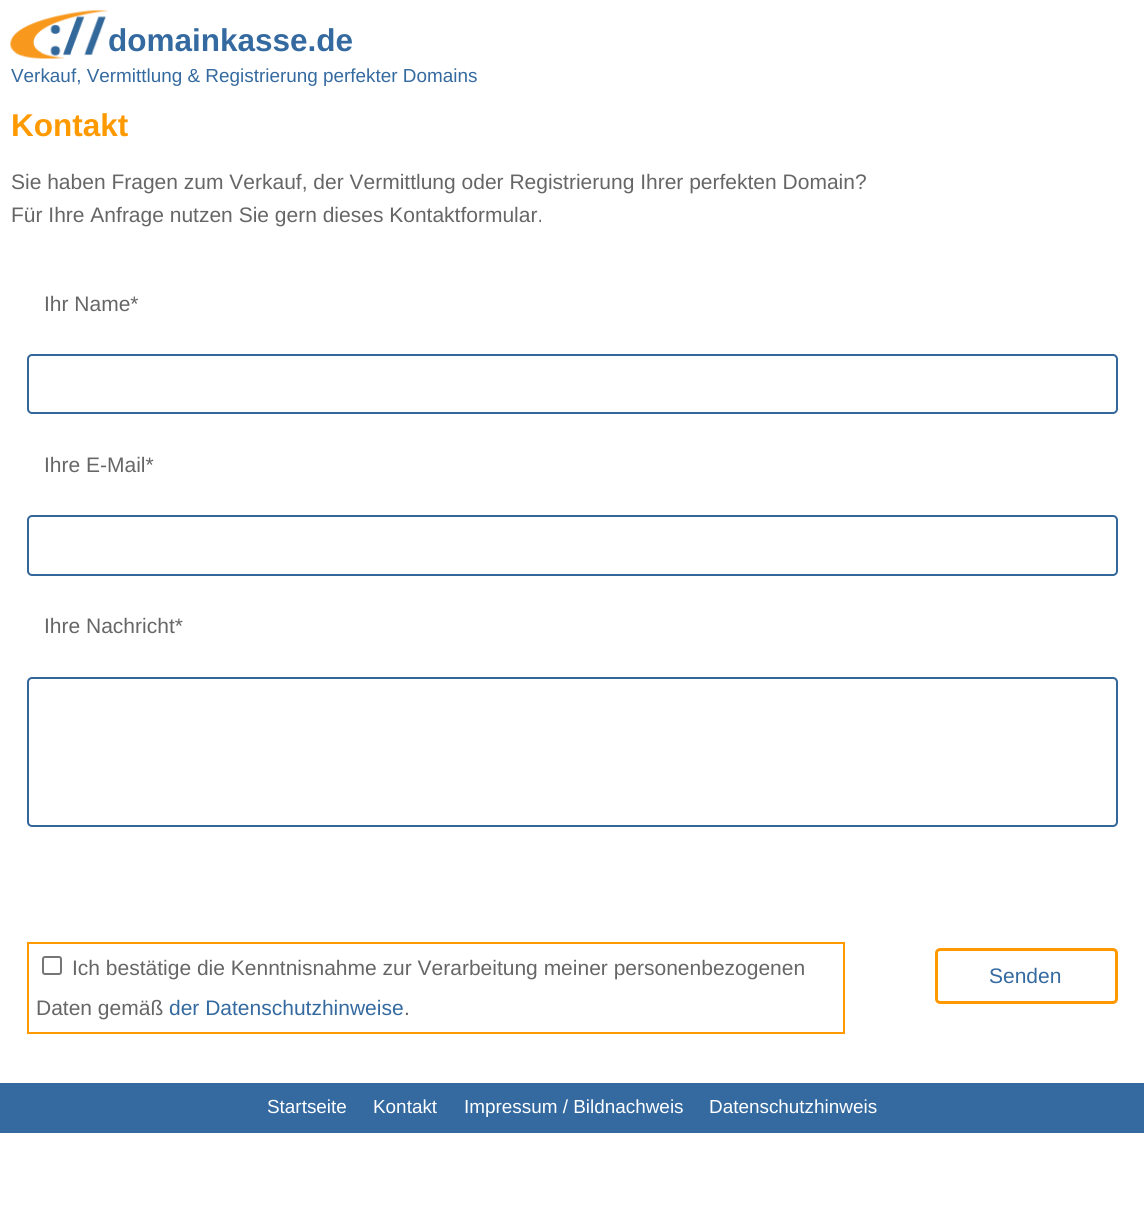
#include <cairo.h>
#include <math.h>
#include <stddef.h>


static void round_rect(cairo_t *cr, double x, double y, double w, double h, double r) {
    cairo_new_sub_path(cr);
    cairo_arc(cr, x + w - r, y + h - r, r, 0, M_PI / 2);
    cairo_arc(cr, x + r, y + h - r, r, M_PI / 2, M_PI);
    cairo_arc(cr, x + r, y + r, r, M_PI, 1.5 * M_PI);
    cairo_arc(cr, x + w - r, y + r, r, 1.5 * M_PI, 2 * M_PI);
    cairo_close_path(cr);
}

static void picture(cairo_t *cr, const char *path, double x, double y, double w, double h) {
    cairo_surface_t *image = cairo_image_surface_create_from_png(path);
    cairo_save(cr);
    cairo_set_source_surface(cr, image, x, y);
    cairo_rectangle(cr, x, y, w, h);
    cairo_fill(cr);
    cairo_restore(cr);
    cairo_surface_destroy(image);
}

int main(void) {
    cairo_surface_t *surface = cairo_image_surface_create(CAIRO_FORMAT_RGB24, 1144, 1218);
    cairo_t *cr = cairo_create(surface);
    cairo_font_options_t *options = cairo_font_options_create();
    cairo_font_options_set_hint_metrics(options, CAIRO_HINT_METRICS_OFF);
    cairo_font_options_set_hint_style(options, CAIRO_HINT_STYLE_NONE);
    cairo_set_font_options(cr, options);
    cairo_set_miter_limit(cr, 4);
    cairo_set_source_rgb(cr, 1, 1, 1);
    cairo_paint(cr);
    picture(cr, "img1.png", 10, 10, 98, 49);
    cairo_select_font_face(cr, "Liberation Sans", CAIRO_FONT_SLANT_NORMAL, CAIRO_FONT_WEIGHT_BOLD);
    cairo_set_font_size(cr, 31.5);
    cairo_set_source_rgb(cr, 0.204, 0.416, 0.627);
    cairo_move_to(cr, 108, 51);
    cairo_show_text(cr, "domainkasse.de");
    cairo_select_font_face(cr, "Liberation Sans", CAIRO_FONT_SLANT_NORMAL, CAIRO_FONT_WEIGHT_NORMAL);
    cairo_set_font_size(cr, 18.9);
    cairo_move_to(cr, 11, 82);
    cairo_show_text(cr, "Verkauf, Vermittlung & Registrierung perfekter Domains");
    cairo_select_font_face(cr, "Liberation Sans", CAIRO_FONT_SLANT_NORMAL, CAIRO_FONT_WEIGHT_BOLD);
    cairo_set_font_size(cr, 31.5);
    cairo_set_source_rgb(cr, 1, 0.6, 0);
    cairo_move_to(cr, 11, 136);
    cairo_show_text(cr, "Kontakt");
    cairo_select_font_face(cr, "Liberation Sans", CAIRO_FONT_SLANT_NORMAL, CAIRO_FONT_WEIGHT_NORMAL);
    cairo_set_font_size(cr, 21);
    cairo_set_source_rgb(cr, 0.4, 0.4, 0.4);
    cairo_move_to(cr, 11, 189);
    cairo_show_text(cr, "Sie haben Fragen zum Verkauf, der Vermittlung oder Registrierung Ihrer perfekten Domain?");
    cairo_move_to(cr, 11, 222);
    cairo_show_text(cr, "Für Ihre Anfrage nutzen Sie gern dieses Kontaktformular.");
    cairo_move_to(cr, 44, 311);
    cairo_show_text(cr, "Ihr Name*");
    round_rect(cr, 28, 355, 1089, 58, 4);
    cairo_set_source_rgb(cr, 0.2, 0.4, 0.6);
    cairo_stroke(cr);
    cairo_set_source_rgb(cr, 0.4, 0.4, 0.4);
    cairo_move_to(cr, 44, 472);
    cairo_show_text(cr, "Ihre E-Mail*");
    round_rect(cr, 28, 516, 1089, 59, 4);
    cairo_set_source_rgb(cr, 0.2, 0.4, 0.6);
    cairo_stroke(cr);
    cairo_set_source_rgb(cr, 0.4, 0.4, 0.4);
    cairo_move_to(cr, 44, 633);
    cairo_show_text(cr, "Ihre Nachricht*");
    round_rect(cr, 28, 678, 1089, 148, 4);
    cairo_set_source_rgb(cr, 0.2, 0.4, 0.6);
    cairo_stroke(cr);
    cairo_rectangle(cr, 28, 943, 816, 90);
    cairo_set_source_rgb(cr, 1, 0.6, 0);
    cairo_stroke(cr);
    round_rect(cr, 43, 957, 18, 17, 2);
    cairo_set_source_rgb(cr, 0.463, 0.463, 0.463);
    cairo_stroke(cr);
    cairo_set_source_rgb(cr, 0.4, 0.4, 0.4);
    cairo_move_to(cr, 72, 975);
    cairo_show_text(cr, "Ich bestätige die Kenntnisnahme zur Verarbeitung meiner personenbezogenen");
    cairo_move_to(cr, 36, 1015);
    cairo_show_text(cr, "Daten gemäß");
    cairo_set_source_rgb(cr, 0.204, 0.416, 0.627);
    cairo_move_to(cr, 169, 1015);
    cairo_show_text(cr, "der Datenschutzhinweise");
    cairo_set_source_rgb(cr, 0.4, 0.4, 0.4);
    cairo_move_to(cr, 404, 1015);
    cairo_show_text(cr, ".");
    round_rect(cr, 936.5, 949.5, 180, 53, 3.5);
    cairo_set_source_rgb(cr, 1, 0.6, 0);
    cairo_set_line_width(cr, 3);
    cairo_stroke(cr);
    cairo_set_source_rgb(cr, 0.204, 0.416, 0.627);
    cairo_move_to(cr, 989, 983);
    cairo_show_text(cr, "Senden");
    cairo_rectangle(cr, 0, 1083, 1144, 50);
    cairo_fill(cr);
    cairo_set_font_size(cr, 18.9);
    cairo_set_source_rgb(cr, 1, 1, 1);
    cairo_move_to(cr, 267, 1113);
    cairo_show_text(cr, "Startseite");
    cairo_move_to(cr, 373, 1113);
    cairo_show_text(cr, "Kontakt");
    cairo_move_to(cr, 464, 1113);
    cairo_show_text(cr, "Impressum / Bildnachweis");
    cairo_move_to(cr, 709, 1113);
    cairo_show_text(cr, "Datenschutzhinweis");
    cairo_surface_write_to_png(surface, "page.png");
    cairo_font_options_destroy(options);
    cairo_destroy(cr);
    cairo_surface_destroy(surface);
    return 0;
}
